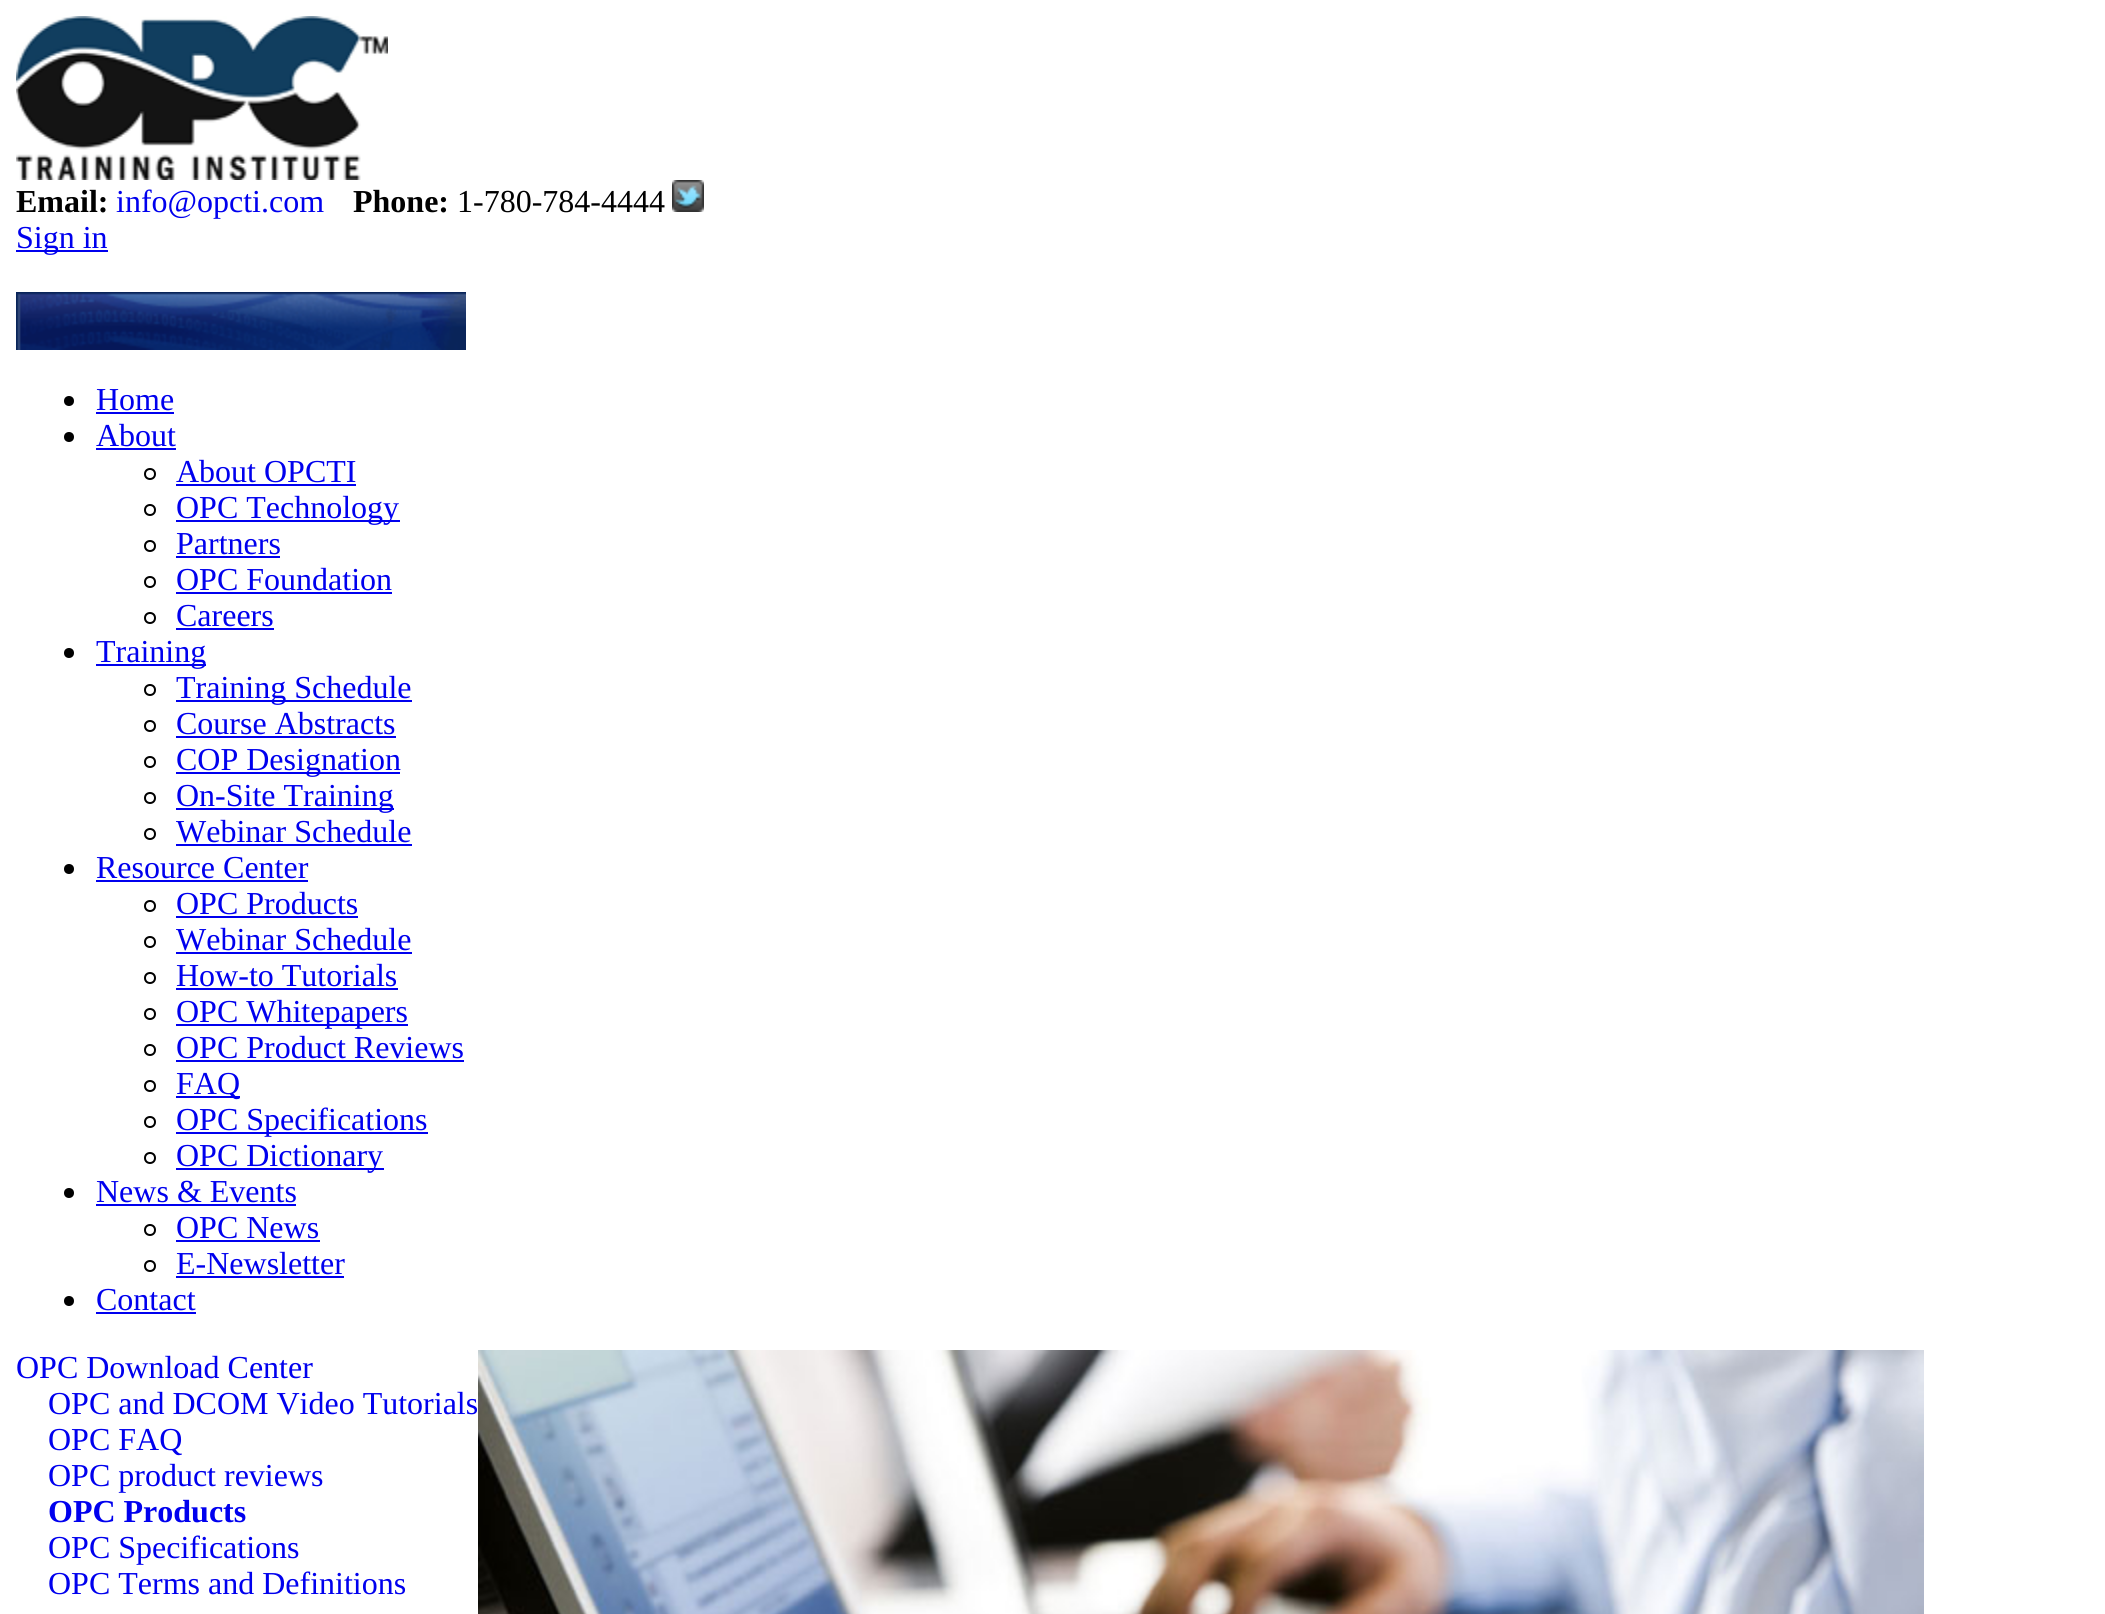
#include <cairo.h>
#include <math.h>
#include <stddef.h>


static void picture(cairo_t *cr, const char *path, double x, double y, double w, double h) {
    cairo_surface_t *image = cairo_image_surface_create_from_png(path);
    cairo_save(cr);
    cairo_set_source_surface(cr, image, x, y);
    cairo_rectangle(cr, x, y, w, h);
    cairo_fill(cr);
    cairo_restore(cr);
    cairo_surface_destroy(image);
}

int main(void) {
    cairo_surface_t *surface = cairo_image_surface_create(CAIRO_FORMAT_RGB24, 2105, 1614);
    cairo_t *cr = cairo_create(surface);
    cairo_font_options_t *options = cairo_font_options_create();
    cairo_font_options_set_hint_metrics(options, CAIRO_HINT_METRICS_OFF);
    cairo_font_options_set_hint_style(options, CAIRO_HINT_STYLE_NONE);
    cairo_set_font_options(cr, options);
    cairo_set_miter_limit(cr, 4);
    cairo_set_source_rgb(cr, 1, 1, 1);
    cairo_paint(cr);
    picture(cr, "img1.png", 16, 16, 372, 164);
    cairo_select_font_face(cr, "Liberation Serif", CAIRO_FONT_SLANT_NORMAL, CAIRO_FONT_WEIGHT_BOLD);
    cairo_set_font_size(cr, 32);
    cairo_set_source_rgb(cr, 0, 0, 0);
    cairo_move_to(cr, 16, 212);
    cairo_show_text(cr, "Email:");
    cairo_select_font_face(cr, "Liberation Serif", CAIRO_FONT_SLANT_NORMAL, CAIRO_FONT_WEIGHT_NORMAL);
    cairo_set_source_rgb(cr, 0, 0, 0.933);
    cairo_move_to(cr, 116, 212);
    cairo_show_text(cr, "info@opcti.com");
    cairo_select_font_face(cr, "Liberation Serif", CAIRO_FONT_SLANT_NORMAL, CAIRO_FONT_WEIGHT_BOLD);
    cairo_set_source_rgb(cr, 0, 0, 0);
    cairo_move_to(cr, 353, 212);
    cairo_show_text(cr, "Phone:");
    cairo_select_font_face(cr, "Liberation Serif", CAIRO_FONT_SLANT_NORMAL, CAIRO_FONT_WEIGHT_NORMAL);
    cairo_move_to(cr, 457, 212);
    cairo_show_text(cr, "1-780-784-4444");
    picture(cr, "img2.png", 672, 180, 32, 32);
    cairo_set_source_rgb(cr, 0, 0, 0.933);
    cairo_rectangle(cr, 16, 250, 92, 2);
    cairo_fill(cr);
    cairo_move_to(cr, 16, 248);
    cairo_show_text(cr, "Sign in");
    picture(cr, "img3.png", 16, 292, 450, 58);
    cairo_set_source_rgb(cr, 0, 0, 0);
    cairo_arc(cr, 69, 401, 5, 0, 2 * M_PI);
    cairo_fill(cr);
    cairo_set_source_rgb(cr, 0, 0, 0.933);
    cairo_move_to(cr, 96, 410);
    cairo_show_text(cr, "Home");
    cairo_rectangle(cr, 96, 412, 78, 2);
    cairo_fill(cr);
    cairo_set_source_rgb(cr, 0, 0, 0);
    cairo_arc(cr, 69, 437, 5, 0, 2 * M_PI);
    cairo_fill(cr);
    cairo_set_source_rgb(cr, 0, 0, 0.933);
    cairo_move_to(cr, 96, 446);
    cairo_show_text(cr, "About");
    cairo_rectangle(cr, 96, 448, 80, 2);
    cairo_fill(cr);
    cairo_arc(cr, 150, 474, 5, 0, 2 * M_PI);
    cairo_set_source_rgb(cr, 0, 0, 0);
    cairo_stroke(cr);
    cairo_set_source_rgb(cr, 0, 0, 0.933);
    cairo_move_to(cr, 176, 482);
    cairo_show_text(cr, "About OPCTI");
    cairo_rectangle(cr, 176, 484, 180, 2);
    cairo_fill(cr);
    cairo_arc(cr, 150, 510, 5, 0, 2 * M_PI);
    cairo_set_source_rgb(cr, 0, 0, 0);
    cairo_stroke(cr);
    cairo_set_source_rgb(cr, 0, 0, 0.933);
    cairo_rectangle(cr, 176, 520, 224, 2);
    cairo_fill(cr);
    cairo_move_to(cr, 176, 518);
    cairo_show_text(cr, "OPC Technology");
    cairo_new_path(cr);
    cairo_arc(cr, 150, 546, 5, 0, 2 * M_PI);
    cairo_set_source_rgb(cr, 0, 0, 0);
    cairo_stroke(cr);
    cairo_set_source_rgb(cr, 0, 0, 0.933);
    cairo_move_to(cr, 176, 554);
    cairo_show_text(cr, "Partners");
    cairo_rectangle(cr, 176, 556, 104, 2);
    cairo_fill(cr);
    cairo_arc(cr, 150, 582, 5, 0, 2 * M_PI);
    cairo_set_source_rgb(cr, 0, 0, 0);
    cairo_stroke(cr);
    cairo_set_source_rgb(cr, 0, 0, 0.933);
    cairo_move_to(cr, 176, 590);
    cairo_show_text(cr, "OPC Foundation");
    cairo_rectangle(cr, 176, 592, 216, 2);
    cairo_fill(cr);
    cairo_arc(cr, 150, 618, 5, 0, 2 * M_PI);
    cairo_set_source_rgb(cr, 0, 0, 0);
    cairo_stroke(cr);
    cairo_set_source_rgb(cr, 0, 0, 0.933);
    cairo_move_to(cr, 176, 626);
    cairo_show_text(cr, "Careers");
    cairo_rectangle(cr, 176, 628, 98, 2);
    cairo_fill(cr);
    cairo_set_source_rgb(cr, 0, 0, 0);
    cairo_arc(cr, 69, 653, 5, 0, 2 * M_PI);
    cairo_fill(cr);
    cairo_set_source_rgb(cr, 0, 0, 0.933);
    cairo_rectangle(cr, 96, 664, 110, 2);
    cairo_fill(cr);
    cairo_move_to(cr, 96, 662);
    cairo_show_text(cr, "Training");
    cairo_new_path(cr);
    cairo_arc(cr, 150, 690, 5, 0, 2 * M_PI);
    cairo_set_source_rgb(cr, 0, 0, 0);
    cairo_stroke(cr);
    cairo_set_source_rgb(cr, 0, 0, 0.933);
    cairo_rectangle(cr, 176, 700, 236, 2);
    cairo_fill(cr);
    cairo_move_to(cr, 176, 698);
    cairo_show_text(cr, "Training Schedule");
    cairo_new_path(cr);
    cairo_arc(cr, 150, 726, 5, 0, 2 * M_PI);
    cairo_set_source_rgb(cr, 0, 0, 0);
    cairo_stroke(cr);
    cairo_set_source_rgb(cr, 0, 0, 0.933);
    cairo_move_to(cr, 176, 734);
    cairo_show_text(cr, "Course Abstracts");
    cairo_rectangle(cr, 176, 736, 220, 2);
    cairo_fill(cr);
    cairo_arc(cr, 150, 762, 5, 0, 2 * M_PI);
    cairo_set_source_rgb(cr, 0, 0, 0);
    cairo_stroke(cr);
    cairo_set_source_rgb(cr, 0, 0, 0.933);
    cairo_rectangle(cr, 176, 772, 224, 2);
    cairo_fill(cr);
    cairo_move_to(cr, 176, 770);
    cairo_show_text(cr, "COP Designation");
    cairo_new_path(cr);
    cairo_arc(cr, 150, 798, 5, 0, 2 * M_PI);
    cairo_set_source_rgb(cr, 0, 0, 0);
    cairo_stroke(cr);
    cairo_set_source_rgb(cr, 0, 0, 0.933);
    cairo_rectangle(cr, 176, 808, 218, 2);
    cairo_fill(cr);
    cairo_move_to(cr, 176, 806);
    cairo_show_text(cr, "On-Site Training");
    cairo_new_path(cr);
    cairo_arc(cr, 150, 834, 5, 0, 2 * M_PI);
    cairo_set_source_rgb(cr, 0, 0, 0);
    cairo_stroke(cr);
    cairo_set_source_rgb(cr, 0, 0, 0.933);
    cairo_move_to(cr, 176, 842);
    cairo_show_text(cr, "Webinar Schedule");
    cairo_rectangle(cr, 176, 844, 236, 2);
    cairo_fill(cr);
    cairo_set_source_rgb(cr, 0, 0, 0);
    cairo_arc(cr, 69, 869, 5, 0, 2 * M_PI);
    cairo_fill(cr);
    cairo_set_source_rgb(cr, 0, 0, 0.933);
    cairo_move_to(cr, 96, 878);
    cairo_show_text(cr, "Resource Center");
    cairo_rectangle(cr, 96, 880, 212, 2);
    cairo_fill(cr);
    cairo_arc(cr, 150, 906, 5, 0, 2 * M_PI);
    cairo_set_source_rgb(cr, 0, 0, 0);
    cairo_stroke(cr);
    cairo_set_source_rgb(cr, 0, 0, 0.933);
    cairo_move_to(cr, 176, 914);
    cairo_show_text(cr, "OPC Products");
    cairo_rectangle(cr, 176, 916, 182, 2);
    cairo_fill(cr);
    cairo_arc(cr, 150, 942, 5, 0, 2 * M_PI);
    cairo_set_source_rgb(cr, 0, 0, 0);
    cairo_stroke(cr);
    cairo_set_source_rgb(cr, 0, 0, 0.933);
    cairo_move_to(cr, 176, 950);
    cairo_show_text(cr, "Webinar Schedule");
    cairo_rectangle(cr, 176, 952, 236, 2);
    cairo_fill(cr);
    cairo_arc(cr, 150, 978, 5, 0, 2 * M_PI);
    cairo_set_source_rgb(cr, 0, 0, 0);
    cairo_stroke(cr);
    cairo_set_source_rgb(cr, 0, 0, 0.933);
    cairo_move_to(cr, 176, 986);
    cairo_show_text(cr, "How-to Tutorials");
    cairo_rectangle(cr, 176, 988, 222, 2);
    cairo_fill(cr);
    cairo_arc(cr, 150, 1014, 5, 0, 2 * M_PI);
    cairo_set_source_rgb(cr, 0, 0, 0);
    cairo_stroke(cr);
    cairo_set_source_rgb(cr, 0, 0, 0.933);
    cairo_rectangle(cr, 176, 1024, 232, 2);
    cairo_fill(cr);
    cairo_move_to(cr, 176, 1022);
    cairo_show_text(cr, "OPC Whitepapers");
    cairo_new_path(cr);
    cairo_arc(cr, 150, 1050, 5, 0, 2 * M_PI);
    cairo_set_source_rgb(cr, 0, 0, 0);
    cairo_stroke(cr);
    cairo_set_source_rgb(cr, 0, 0, 0.933);
    cairo_move_to(cr, 176, 1058);
    cairo_show_text(cr, "OPC Product Reviews");
    cairo_rectangle(cr, 176, 1060, 288, 2);
    cairo_fill(cr);
    cairo_arc(cr, 150, 1086, 5, 0, 2 * M_PI);
    cairo_set_source_rgb(cr, 0, 0, 0);
    cairo_stroke(cr);
    cairo_set_source_rgb(cr, 0, 0, 0.933);
    cairo_rectangle(cr, 176, 1096, 64, 2);
    cairo_fill(cr);
    cairo_move_to(cr, 176, 1094);
    cairo_show_text(cr, "FAQ");
    cairo_new_path(cr);
    cairo_arc(cr, 150, 1122, 5, 0, 2 * M_PI);
    cairo_set_source_rgb(cr, 0, 0, 0);
    cairo_stroke(cr);
    cairo_set_source_rgb(cr, 0, 0, 0.933);
    cairo_rectangle(cr, 176, 1132, 252, 2);
    cairo_fill(cr);
    cairo_move_to(cr, 176, 1130);
    cairo_show_text(cr, "OPC Specifications");
    cairo_new_path(cr);
    cairo_arc(cr, 150, 1158, 5, 0, 2 * M_PI);
    cairo_set_source_rgb(cr, 0, 0, 0);
    cairo_stroke(cr);
    cairo_set_source_rgb(cr, 0, 0, 0.933);
    cairo_rectangle(cr, 176, 1168, 208, 2);
    cairo_fill(cr);
    cairo_move_to(cr, 176, 1166);
    cairo_show_text(cr, "OPC Dictionary");
    cairo_set_source_rgb(cr, 0, 0, 0);
    cairo_new_path(cr);
    cairo_arc(cr, 69, 1193, 5, 0, 2 * M_PI);
    cairo_fill(cr);
    cairo_set_source_rgb(cr, 0, 0, 0.933);
    cairo_move_to(cr, 96, 1202);
    cairo_show_text(cr, "News & Events");
    cairo_rectangle(cr, 96, 1204, 200, 2);
    cairo_fill(cr);
    cairo_arc(cr, 150, 1230, 5, 0, 2 * M_PI);
    cairo_set_source_rgb(cr, 0, 0, 0);
    cairo_stroke(cr);
    cairo_set_source_rgb(cr, 0, 0, 0.933);
    cairo_move_to(cr, 176, 1238);
    cairo_show_text(cr, "OPC News");
    cairo_rectangle(cr, 176, 1240, 144, 2);
    cairo_fill(cr);
    cairo_arc(cr, 150, 1266, 5, 0, 2 * M_PI);
    cairo_set_source_rgb(cr, 0, 0, 0);
    cairo_stroke(cr);
    cairo_set_source_rgb(cr, 0, 0, 0.933);
    cairo_move_to(cr, 176, 1274);
    cairo_show_text(cr, "E-Newsletter");
    cairo_rectangle(cr, 176, 1276, 168, 2);
    cairo_fill(cr);
    cairo_set_source_rgb(cr, 0, 0, 0);
    cairo_arc(cr, 69, 1301, 5, 0, 2 * M_PI);
    cairo_fill(cr);
    cairo_set_source_rgb(cr, 0, 0, 0.933);
    cairo_move_to(cr, 96, 1310);
    cairo_show_text(cr, "Contact");
    cairo_rectangle(cr, 96, 1312, 100, 2);
    cairo_fill(cr);
    cairo_move_to(cr, 16, 1378);
    cairo_show_text(cr, "OPC Download Center");
    cairo_move_to(cr, 48, 1414);
    cairo_show_text(cr, "OPC and DCOM Video Tutorials");
    cairo_move_to(cr, 48, 1450);
    cairo_show_text(cr, "OPC FAQ");
    cairo_move_to(cr, 48, 1486);
    cairo_show_text(cr, "OPC product reviews");
    cairo_select_font_face(cr, "Liberation Serif", CAIRO_FONT_SLANT_NORMAL, CAIRO_FONT_WEIGHT_BOLD);
    cairo_move_to(cr, 48, 1522);
    cairo_show_text(cr, "OPC Products");
    cairo_select_font_face(cr, "Liberation Serif", CAIRO_FONT_SLANT_NORMAL, CAIRO_FONT_WEIGHT_NORMAL);
    cairo_move_to(cr, 48, 1558);
    cairo_show_text(cr, "OPC Specifications");
    cairo_move_to(cr, 48, 1594);
    cairo_show_text(cr, "OPC Terms and Definitions");
    picture(cr, "img4.png", 478, 1350, 1446, 264);
    cairo_surface_write_to_png(surface, "page.png");
    cairo_font_options_destroy(options);
    cairo_destroy(cr);
    cairo_surface_destroy(surface);
    return 0;
}
